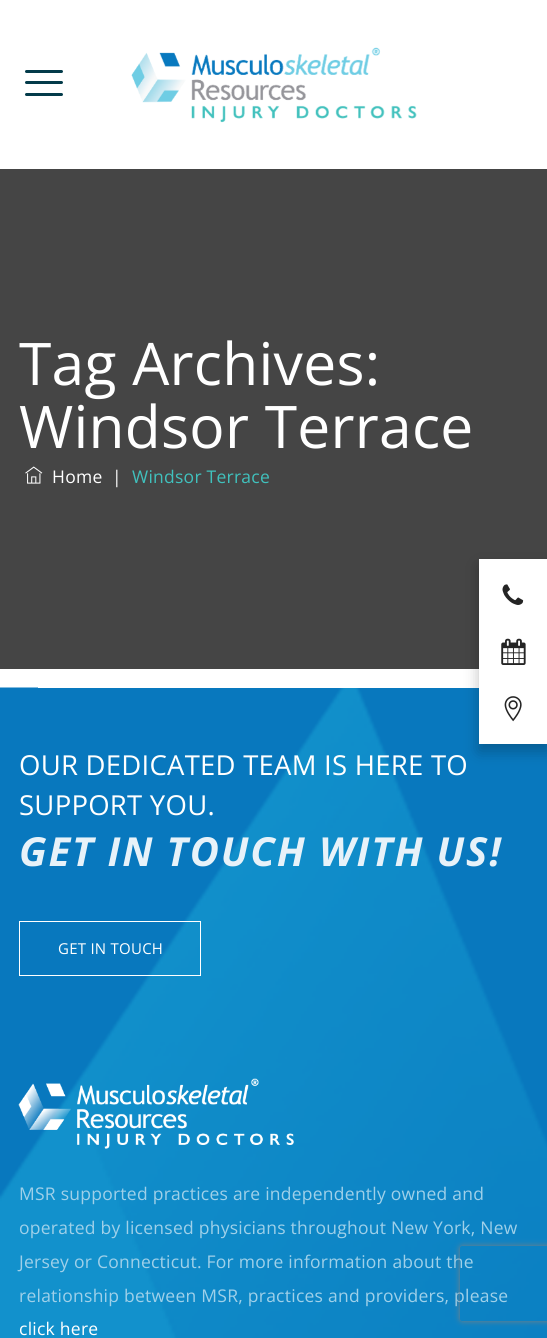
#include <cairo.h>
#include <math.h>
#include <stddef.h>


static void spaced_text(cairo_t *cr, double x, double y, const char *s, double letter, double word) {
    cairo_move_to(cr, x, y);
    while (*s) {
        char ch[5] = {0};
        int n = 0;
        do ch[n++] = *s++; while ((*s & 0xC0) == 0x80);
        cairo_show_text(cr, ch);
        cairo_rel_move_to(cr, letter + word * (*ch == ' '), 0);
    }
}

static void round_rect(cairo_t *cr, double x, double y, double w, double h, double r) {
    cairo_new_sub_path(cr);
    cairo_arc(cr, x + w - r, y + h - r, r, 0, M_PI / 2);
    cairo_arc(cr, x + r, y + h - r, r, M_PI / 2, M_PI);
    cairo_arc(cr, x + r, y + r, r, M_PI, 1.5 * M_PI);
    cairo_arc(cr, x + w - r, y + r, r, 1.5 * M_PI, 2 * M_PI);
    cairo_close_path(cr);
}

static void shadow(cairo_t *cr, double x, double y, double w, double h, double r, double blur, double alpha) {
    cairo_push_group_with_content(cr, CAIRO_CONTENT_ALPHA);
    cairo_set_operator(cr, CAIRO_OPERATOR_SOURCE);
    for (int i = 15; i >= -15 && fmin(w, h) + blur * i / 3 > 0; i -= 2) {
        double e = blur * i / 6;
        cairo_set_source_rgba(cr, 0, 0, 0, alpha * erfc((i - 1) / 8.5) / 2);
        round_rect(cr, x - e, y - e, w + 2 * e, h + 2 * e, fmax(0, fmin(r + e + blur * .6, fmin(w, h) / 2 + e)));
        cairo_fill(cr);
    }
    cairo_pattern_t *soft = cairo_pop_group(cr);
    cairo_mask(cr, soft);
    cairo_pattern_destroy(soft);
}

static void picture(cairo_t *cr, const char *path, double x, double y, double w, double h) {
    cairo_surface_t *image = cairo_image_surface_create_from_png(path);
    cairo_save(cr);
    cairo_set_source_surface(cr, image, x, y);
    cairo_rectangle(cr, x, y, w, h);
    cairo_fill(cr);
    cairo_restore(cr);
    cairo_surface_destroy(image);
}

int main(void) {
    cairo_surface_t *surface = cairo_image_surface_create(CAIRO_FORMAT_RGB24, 547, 1338);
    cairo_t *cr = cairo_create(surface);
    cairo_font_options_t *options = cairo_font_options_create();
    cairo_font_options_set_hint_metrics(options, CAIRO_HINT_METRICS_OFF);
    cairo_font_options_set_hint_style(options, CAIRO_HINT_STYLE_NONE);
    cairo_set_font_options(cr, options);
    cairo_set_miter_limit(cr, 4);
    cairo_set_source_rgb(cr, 1, 1, 1);
    cairo_paint(cr);
    cairo_set_source_rgb(cr, 0.012, 0.231, 0.29);
    round_rect(cr, 25, 81, 38, 3, 1.5);
    cairo_fill(cr);
    round_rect(cr, 25, 70, 38, 3, 1.5);
    cairo_fill(cr);
    round_rect(cr, 25, 93, 38, 3, 1.5);
    cairo_fill(cr);
    picture(cr, "img1.png", 131, 47, 286, 76);
    cairo_set_source_rgb(cr, 0.271, 0.271, 0.271);
    cairo_rectangle(cr, 0, 169, 547, 500);
    cairo_fill(cr);
    cairo_select_font_face(cr, "Open Sans", CAIRO_FONT_SLANT_NORMAL, CAIRO_FONT_WEIGHT_NORMAL);
    cairo_set_font_size(cr, 58.75);
    cairo_set_source_rgb(cr, 1, 1, 1);
    spaced_text(cr, 19, 385, "Tag Archives:", 0.25, 0);
    spaced_text(cr, 19, 448, "Windsor Terrace", 0.25, 0);
    picture(cr, "img2.png", 25, 466, 18, 18);
    cairo_set_font_size(cr, 17.5);
    spaced_text(cr, 52, 483, "Home", 0.25, 0);
    spaced_text(cr, 112, 483, "|", 0.25, 0);
    cairo_set_source_rgb(cr, 0.251, 0.757, 0.741);
    spaced_text(cr, 132, 483, "Windsor Terrace", 0.25, 0);
    picture(cr, "img3.png", 0, 687, 547, 651);
    cairo_set_source_rgb(cr, 1, 1, 1);
    cairo_rectangle(cr, 38, 687, 441, 1);
    cairo_fill(cr);
    cairo_set_font_size(cr, 27.5);
    spaced_text(cr, 19, 775, "OUR DEDICATED TEAM IS HERE TO", 0.25, 0);
    spaced_text(cr, 19, 815, "SUPPORT YOU.", 0.25, 0);
    cairo_select_font_face(cr, "Open Sans", CAIRO_FONT_SLANT_ITALIC, CAIRO_FONT_WEIGHT_BOLD);
    cairo_set_font_size(cr, 40);
    cairo_set_source_rgb(cr, 0.906, 0.949, 0.976);
    spaced_text(cr, 19, 866, "GET IN TOUCH WITH US!", 1.9, 0);
    cairo_rectangle(cr, 19.5, 921.5, 181, 54);
    cairo_set_source_rgb(cr, 1, 1, 1);
    cairo_set_line_width(cr, 1);
    cairo_stroke(cr);
    cairo_select_font_face(cr, "Open Sans", CAIRO_FONT_SLANT_NORMAL, CAIRO_FONT_WEIGHT_NORMAL);
    cairo_set_font_size(cr, 15);
    spaced_text(cr, 58, 954, "GET IN TOUCH", 0.25, 0);
    picture(cr, "img4.png", 18, 1078, 276, 71);
    cairo_set_font_size(cr, 17.5);
    cairo_set_source_rgb(cr, 0.624, 0.816, 0.914);
    spaced_text(cr, 19, 1200, "MSR supported practices are independently owned and", 0.25, 0);
    spaced_text(cr, 19, 1234, "operated by licensed physicians throughout New York, New", 0.25, 0);
    spaced_text(cr, 19, 1268, "Jersey or Connecticut. For more information about the", 0.25, 0);
    spaced_text(cr, 19, 1302, "relationship between MSR, practices and providers, please", 0.25, 0);
    cairo_set_source_rgb(cr, 1, 1, 1);
    spaced_text(cr, 19, 1335, "click here", 0.25, 0);
    cairo_set_source_rgb(cr, 0, 0, 0);
    shadow(cr, 479, 566, 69, 185, 0, 7.5, 0.25);
    cairo_set_source_rgb(cr, 1, 1, 1);
    cairo_rectangle(cr, 479, 559, 68, 185);
    cairo_fill(cr);
    picture(cr, "img5.png", 502, 584, 22, 21);
    picture(cr, "img6.png", 501, 638, 25, 27);
    picture(cr, "img7.png", 504, 696, 18, 26);
    cairo_save(cr);
    cairo_set_fill_rule(cr, CAIRO_FILL_RULE_EVEN_ODD);
    cairo_new_path(cr);
    cairo_move_to(cr, 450, 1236);
    cairo_line_to(cr, 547, 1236);
    cairo_line_to(cr, 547, 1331);
    cairo_line_to(cr, 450, 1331);
    cairo_close_path(cr);
    cairo_move_to(cr, 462.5, 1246);
    cairo_line_to(cr, 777.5, 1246);
    cairo_curve_to(cr, 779, 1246, 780, 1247, 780, 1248.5);
    cairo_line_to(cr, 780, 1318.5);
    cairo_curve_to(cr, 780, 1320, 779, 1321, 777.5, 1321);
    cairo_line_to(cr, 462.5, 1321);
    cairo_curve_to(cr, 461, 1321, 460, 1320, 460, 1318.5);
    cairo_line_to(cr, 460, 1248.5);
    cairo_curve_to(cr, 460, 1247, 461, 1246, 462.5, 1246);
    cairo_close_path(cr);
    cairo_clip(cr);
    cairo_set_source_rgb(cr, 0.502, 0.502, 0.502);
    shadow(cr, 460, 1246, 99, 75, 2.5, 3, 1);
    cairo_restore(cr);
    cairo_surface_write_to_png(surface, "page.png");
    cairo_font_options_destroy(options);
    cairo_destroy(cr);
    cairo_surface_destroy(surface);
    return 0;
}
